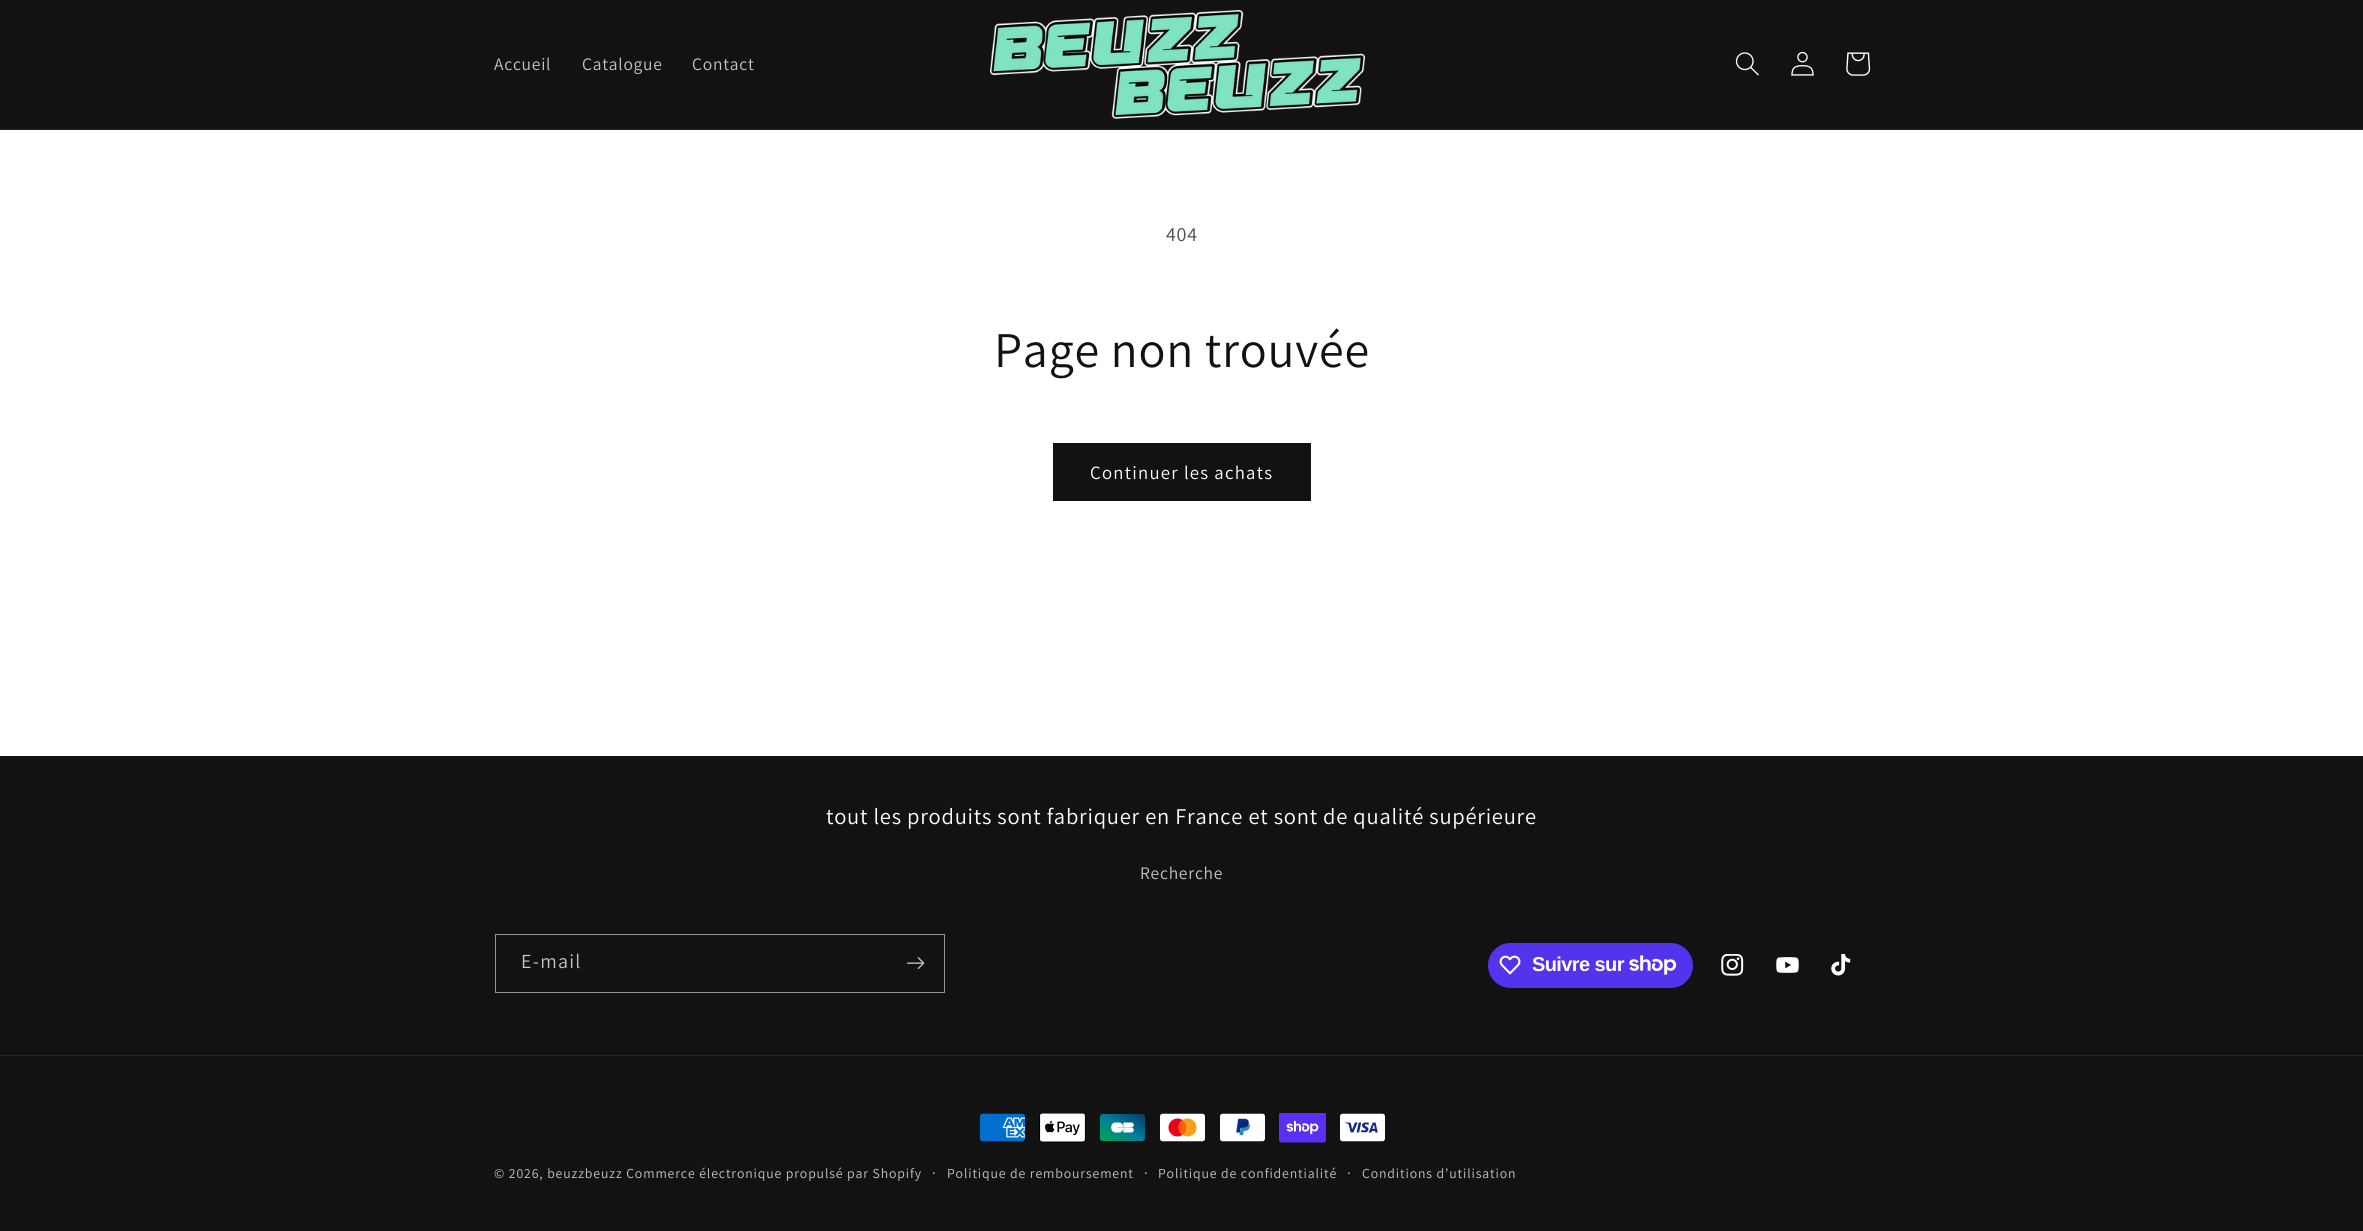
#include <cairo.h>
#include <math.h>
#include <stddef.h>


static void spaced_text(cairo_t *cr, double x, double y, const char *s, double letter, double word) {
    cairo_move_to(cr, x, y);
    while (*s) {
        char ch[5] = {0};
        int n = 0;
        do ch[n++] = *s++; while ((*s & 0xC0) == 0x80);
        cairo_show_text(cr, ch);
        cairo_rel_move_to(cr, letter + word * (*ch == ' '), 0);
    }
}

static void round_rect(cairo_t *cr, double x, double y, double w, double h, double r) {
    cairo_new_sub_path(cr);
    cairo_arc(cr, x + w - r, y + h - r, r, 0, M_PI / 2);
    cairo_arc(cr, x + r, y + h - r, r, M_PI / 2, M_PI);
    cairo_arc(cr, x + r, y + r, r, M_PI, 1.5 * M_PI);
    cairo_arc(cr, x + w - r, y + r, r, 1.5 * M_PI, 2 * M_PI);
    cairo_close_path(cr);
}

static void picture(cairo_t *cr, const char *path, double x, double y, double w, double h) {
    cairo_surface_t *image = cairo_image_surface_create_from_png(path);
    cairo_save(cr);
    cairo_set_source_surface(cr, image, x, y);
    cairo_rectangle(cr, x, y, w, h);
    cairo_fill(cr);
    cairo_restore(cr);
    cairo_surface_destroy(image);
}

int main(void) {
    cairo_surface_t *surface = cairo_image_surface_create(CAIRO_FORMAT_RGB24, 2363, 1231);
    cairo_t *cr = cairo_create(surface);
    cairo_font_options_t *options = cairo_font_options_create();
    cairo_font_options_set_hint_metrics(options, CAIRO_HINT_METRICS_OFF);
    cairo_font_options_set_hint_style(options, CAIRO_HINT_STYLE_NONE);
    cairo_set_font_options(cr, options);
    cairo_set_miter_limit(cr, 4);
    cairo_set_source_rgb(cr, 1, 1, 1);
    cairo_paint(cr);
    cairo_set_source_rgb(cr, 0.071, 0.071, 0.071);
    cairo_rectangle(cr, 0, 0, 2363, 129);
    cairo_fill(cr);
    cairo_set_source_rgb(cr, 0.145, 0.145, 0.145);
    cairo_rectangle(cr, 0, 129, 2363, 1);
    cairo_fill(cr);
    cairo_select_font_face(cr, "Assistant", CAIRO_FONT_SLANT_NORMAL, CAIRO_FONT_WEIGHT_NORMAL);
    cairo_set_font_size(cr, 17.5);
    cairo_set_source_rgb(cr, 0.769, 0.769, 0.769);
    spaced_text(cr, 494, 70, "Accueil", 0.75, 0);
    spaced_text(cr, 582, 70, "Catalogue", 0.75, 0);
    spaced_text(cr, 692, 70, "Contact", 0.75, 0);
    picture(cr, "img1.png", 990, 10, 375, 109);
    picture(cr, "img2.png", 1735, 52, 24, 24);
    picture(cr, "img3.png", 1791, 51, 23, 25);
    picture(cr, "img4.png", 1846, 52, 25, 24);
    cairo_set_font_size(cr, 20);
    cairo_set_source_rgb(cr, 0.302, 0.302, 0.302);
    spaced_text(cr, 1166, 241, "404", 0.75, 0);
    cairo_set_font_size(cr, 50);
    cairo_set_source_rgb(cr, 0.071, 0.071, 0.071);
    spaced_text(cr, 994, 367, "Page non trouvée", 0.75, 0);
    cairo_rectangle(cr, 1053, 443, 258, 58);
    cairo_fill(cr);
    cairo_set_font_size(cr, 18.75);
    cairo_set_source_rgb(cr, 1, 1, 1);
    spaced_text(cr, 1090, 479, "Continuer les achats", 1.25, 0);
    cairo_set_source_rgb(cr, 0.071, 0.071, 0.071);
    cairo_rectangle(cr, 0, 756, 2363, 475);
    cairo_fill(cr);
    cairo_set_font_size(cr, 22.5);
    cairo_set_source_rgb(cr, 1, 1, 1);
    spaced_text(cr, 826, 824, "tout les produits sont fabriquer en France et sont de qualité supérieure", 0.75, 0);
    cairo_set_font_size(cr, 17.5);
    cairo_set_source_rgb(cr, 0.769, 0.769, 0.769);
    spaced_text(cr, 1140, 879, "Recherche", 0.75, 0);
    cairo_rectangle(cr, 495.5, 934.5, 449, 58);
    cairo_set_source_rgb(cr, 0.58, 0.58, 0.58);
    cairo_set_line_width(cr, 1);
    cairo_stroke(cr);
    cairo_set_font_size(cr, 20);
    cairo_set_source_rgb(cr, 0.769, 0.769, 0.769);
    spaced_text(cr, 521, 968, "E-mail", 1.25, 0);
    picture(cr, "img5.png", 907, 957, 18, 13);
    cairo_set_source_rgb(cr, 0.329, 0.2, 0.922);
    round_rect(cr, 1488, 943, 205, 45, 22.5);
    cairo_fill(cr);
    picture(cr, "img6.png", 1499, 955, 22, 20);
    cairo_select_font_face(cr, "Liberation Sans", CAIRO_FONT_SLANT_NORMAL, CAIRO_FONT_WEIGHT_BOLD);
    cairo_set_source_rgb(cr, 1, 1, 1);
    spaced_text(cr, 1532, 971, "Suivre sur", -0.6, 0);
    picture(cr, "img7.png", 1629, 955, 48, 20);
    picture(cr, "img8.png", 1721, 954, 23, 22);
    picture(cr, "img9.png", 1776, 957, 23, 16);
    picture(cr, "img10.png", 1831, 954, 20, 22);
    cairo_set_source_rgb(cr, 0.145, 0.145, 0.145);
    cairo_rectangle(cr, 0, 1055, 2363, 1);
    cairo_fill(cr);
    picture(cr, "img11.png", 980, 1113, 45, 29);
    picture(cr, "img12.png", 1039, 1113, 47, 30);
    picture(cr, "img13.png", 1100, 1114, 45, 27);
    picture(cr, "img14.png", 1160, 1113, 45, 29);
    picture(cr, "img15.png", 1220, 1113, 45, 29);
    picture(cr, "img16.png", 1279, 1113, 47, 30);
    picture(cr, "img17.png", 1340, 1113, 45, 29);
    cairo_select_font_face(cr, "Assistant", CAIRO_FONT_SLANT_NORMAL, CAIRO_FONT_WEIGHT_NORMAL);
    cairo_set_font_size(cr, 13.75);
    cairo_set_source_rgb(cr, 0.769, 0.769, 0.769);
    spaced_text(cr, 494, 1178, "© 2026, beuzzbeuzz Commerce électronique propulsé par Shopify", 0.88, 0);
    cairo_set_font_size(cr, 15);
    spaced_text(cr, 932, 1178, "·", 0.88, 0);
    cairo_set_font_size(cr, 13.75);
    spaced_text(cr, 947, 1178, "Politique de remboursement", 0.88, 0);
    cairo_set_font_size(cr, 15);
    spaced_text(cr, 1144, 1178, "·", 0.88, 0);
    cairo_set_font_size(cr, 13.75);
    spaced_text(cr, 1158, 1178, "Politique de confidentialité", 0.88, 0);
    cairo_set_font_size(cr, 15);
    spaced_text(cr, 1347, 1178, "·", 0.88, 0);
    cairo_set_font_size(cr, 13.75);
    spaced_text(cr, 1362, 1178, "Conditions d’utilisation", 0.88, 0);
    cairo_surface_write_to_png(surface, "page.png");
    cairo_font_options_destroy(options);
    cairo_destroy(cr);
    cairo_surface_destroy(surface);
    return 0;
}
